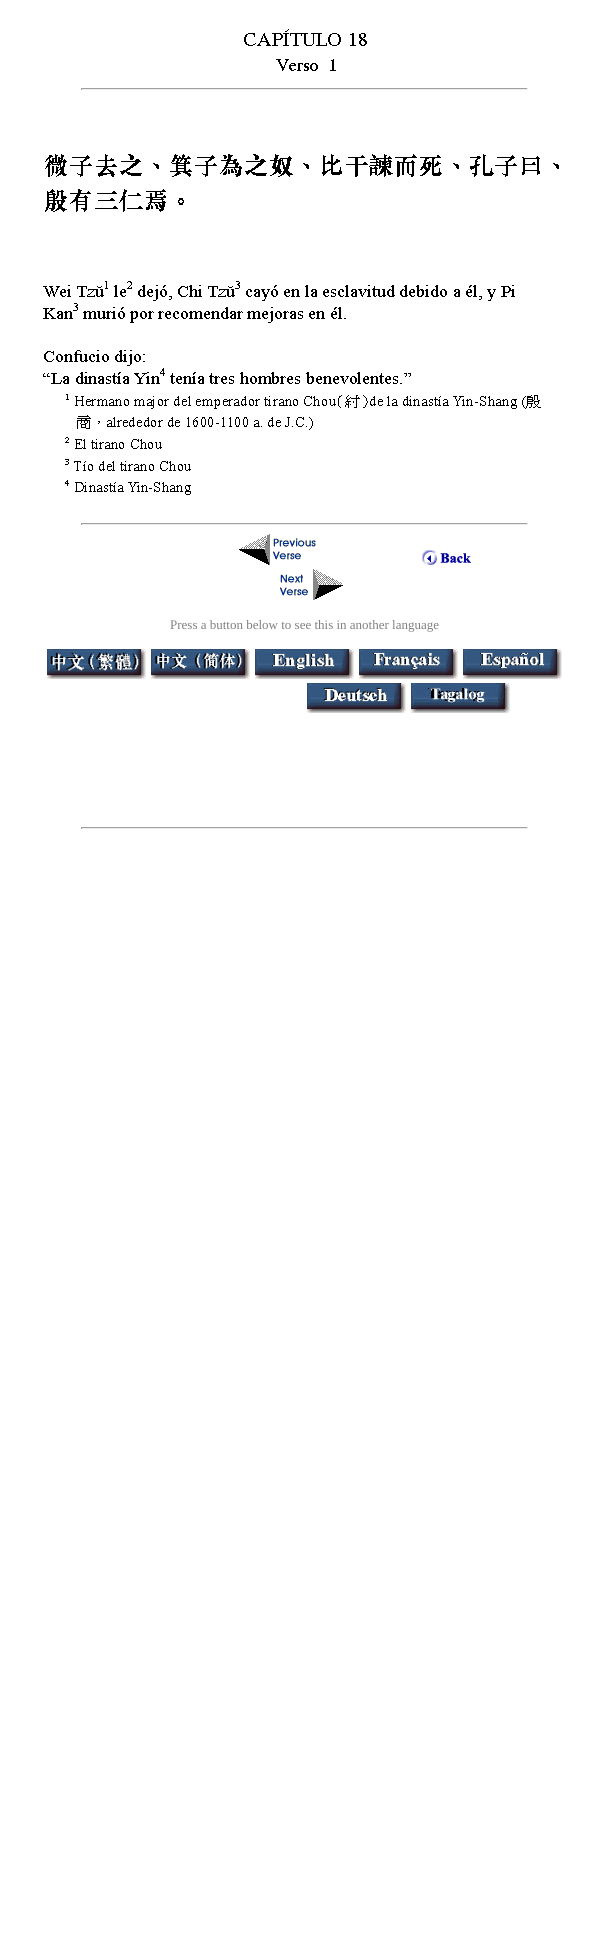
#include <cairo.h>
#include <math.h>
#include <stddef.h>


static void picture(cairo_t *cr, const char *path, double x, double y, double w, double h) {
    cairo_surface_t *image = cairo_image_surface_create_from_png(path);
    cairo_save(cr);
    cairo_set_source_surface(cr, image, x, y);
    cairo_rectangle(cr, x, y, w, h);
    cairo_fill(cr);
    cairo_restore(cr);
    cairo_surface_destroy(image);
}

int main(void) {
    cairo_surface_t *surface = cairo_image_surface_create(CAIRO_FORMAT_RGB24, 609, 1946);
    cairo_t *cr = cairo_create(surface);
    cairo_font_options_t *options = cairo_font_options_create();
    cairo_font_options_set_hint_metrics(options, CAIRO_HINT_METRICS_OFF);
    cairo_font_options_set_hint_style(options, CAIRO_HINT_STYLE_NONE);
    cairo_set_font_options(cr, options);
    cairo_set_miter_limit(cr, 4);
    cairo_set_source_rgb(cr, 1, 1, 1);
    cairo_paint(cr);
    picture(cr, "img1.png", 244, 29, 123, 17);
    picture(cr, "img2.png", 276, 59, 60, 12);
    cairo_set_source_rgb(cr, 0.624, 0.624, 0.624);
    cairo_rectangle(cr, 81, 88, 447, 1);
    cairo_fill(cr);
    cairo_set_source_rgb(cr, 0.933, 0.933, 0.933);
    cairo_rectangle(cr, 527, 88, 1, 2);
    cairo_fill(cr);
    cairo_rectangle(cr, 81, 89, 447, 1);
    cairo_fill(cr);
    cairo_set_source_rgb(cr, 0.624, 0.624, 0.624);
    cairo_rectangle(cr, 81, 88, 1, 2);
    cairo_fill(cr);
    picture(cr, "img3.png", 45, 154, 514, 58);
    picture(cr, "img4.png", 43, 281, 498, 214);
    cairo_rectangle(cr, 81, 523, 447, 1);
    cairo_fill(cr);
    cairo_set_source_rgb(cr, 0.933, 0.933, 0.933);
    cairo_rectangle(cr, 527, 523, 1, 2);
    cairo_fill(cr);
    cairo_rectangle(cr, 81, 524, 447, 1);
    cairo_fill(cr);
    cairo_set_source_rgb(cr, 0.624, 0.624, 0.624);
    cairo_rectangle(cr, 81, 523, 1, 2);
    cairo_fill(cr);
    picture(cr, "img5.png", 239, 534, 77, 31);
    picture(cr, "img6.png", 422, 550, 49, 15);
    picture(cr, "img7.png", 280, 569, 63, 31);
    cairo_select_font_face(cr, "Liberation Serif", CAIRO_FONT_SLANT_NORMAL, CAIRO_FONT_WEIGHT_NORMAL);
    cairo_set_font_size(cr, 13);
    cairo_set_source_rgb(cr, 0.502, 0.502, 0.502);
    cairo_move_to(cr, 170, 629);
    cairo_show_text(cr, "Press a button below to see this in another language");
    picture(cr, "img8.png", 47, 649, 99, 30);
    picture(cr, "img9.png", 151, 649, 99, 30);
    picture(cr, "img10.png", 255, 649, 99, 30);
    picture(cr, "img11.png", 359, 649, 99, 30);
    picture(cr, "img12.png", 463, 649, 99, 30);
    picture(cr, "img13.png", 307, 683, 99, 30);
    picture(cr, "img14.png", 411, 683, 99, 30);
    cairo_set_source_rgb(cr, 0.624, 0.624, 0.624);
    cairo_rectangle(cr, 81, 827, 447, 1);
    cairo_fill(cr);
    cairo_set_source_rgb(cr, 0.933, 0.933, 0.933);
    cairo_rectangle(cr, 527, 827, 1, 2);
    cairo_fill(cr);
    cairo_rectangle(cr, 81, 828, 447, 1);
    cairo_fill(cr);
    cairo_set_source_rgb(cr, 0.624, 0.624, 0.624);
    cairo_rectangle(cr, 81, 827, 1, 2);
    cairo_fill(cr);
    cairo_surface_write_to_png(surface, "page.png");
    cairo_font_options_destroy(options);
    cairo_destroy(cr);
    cairo_surface_destroy(surface);
    return 0;
}
